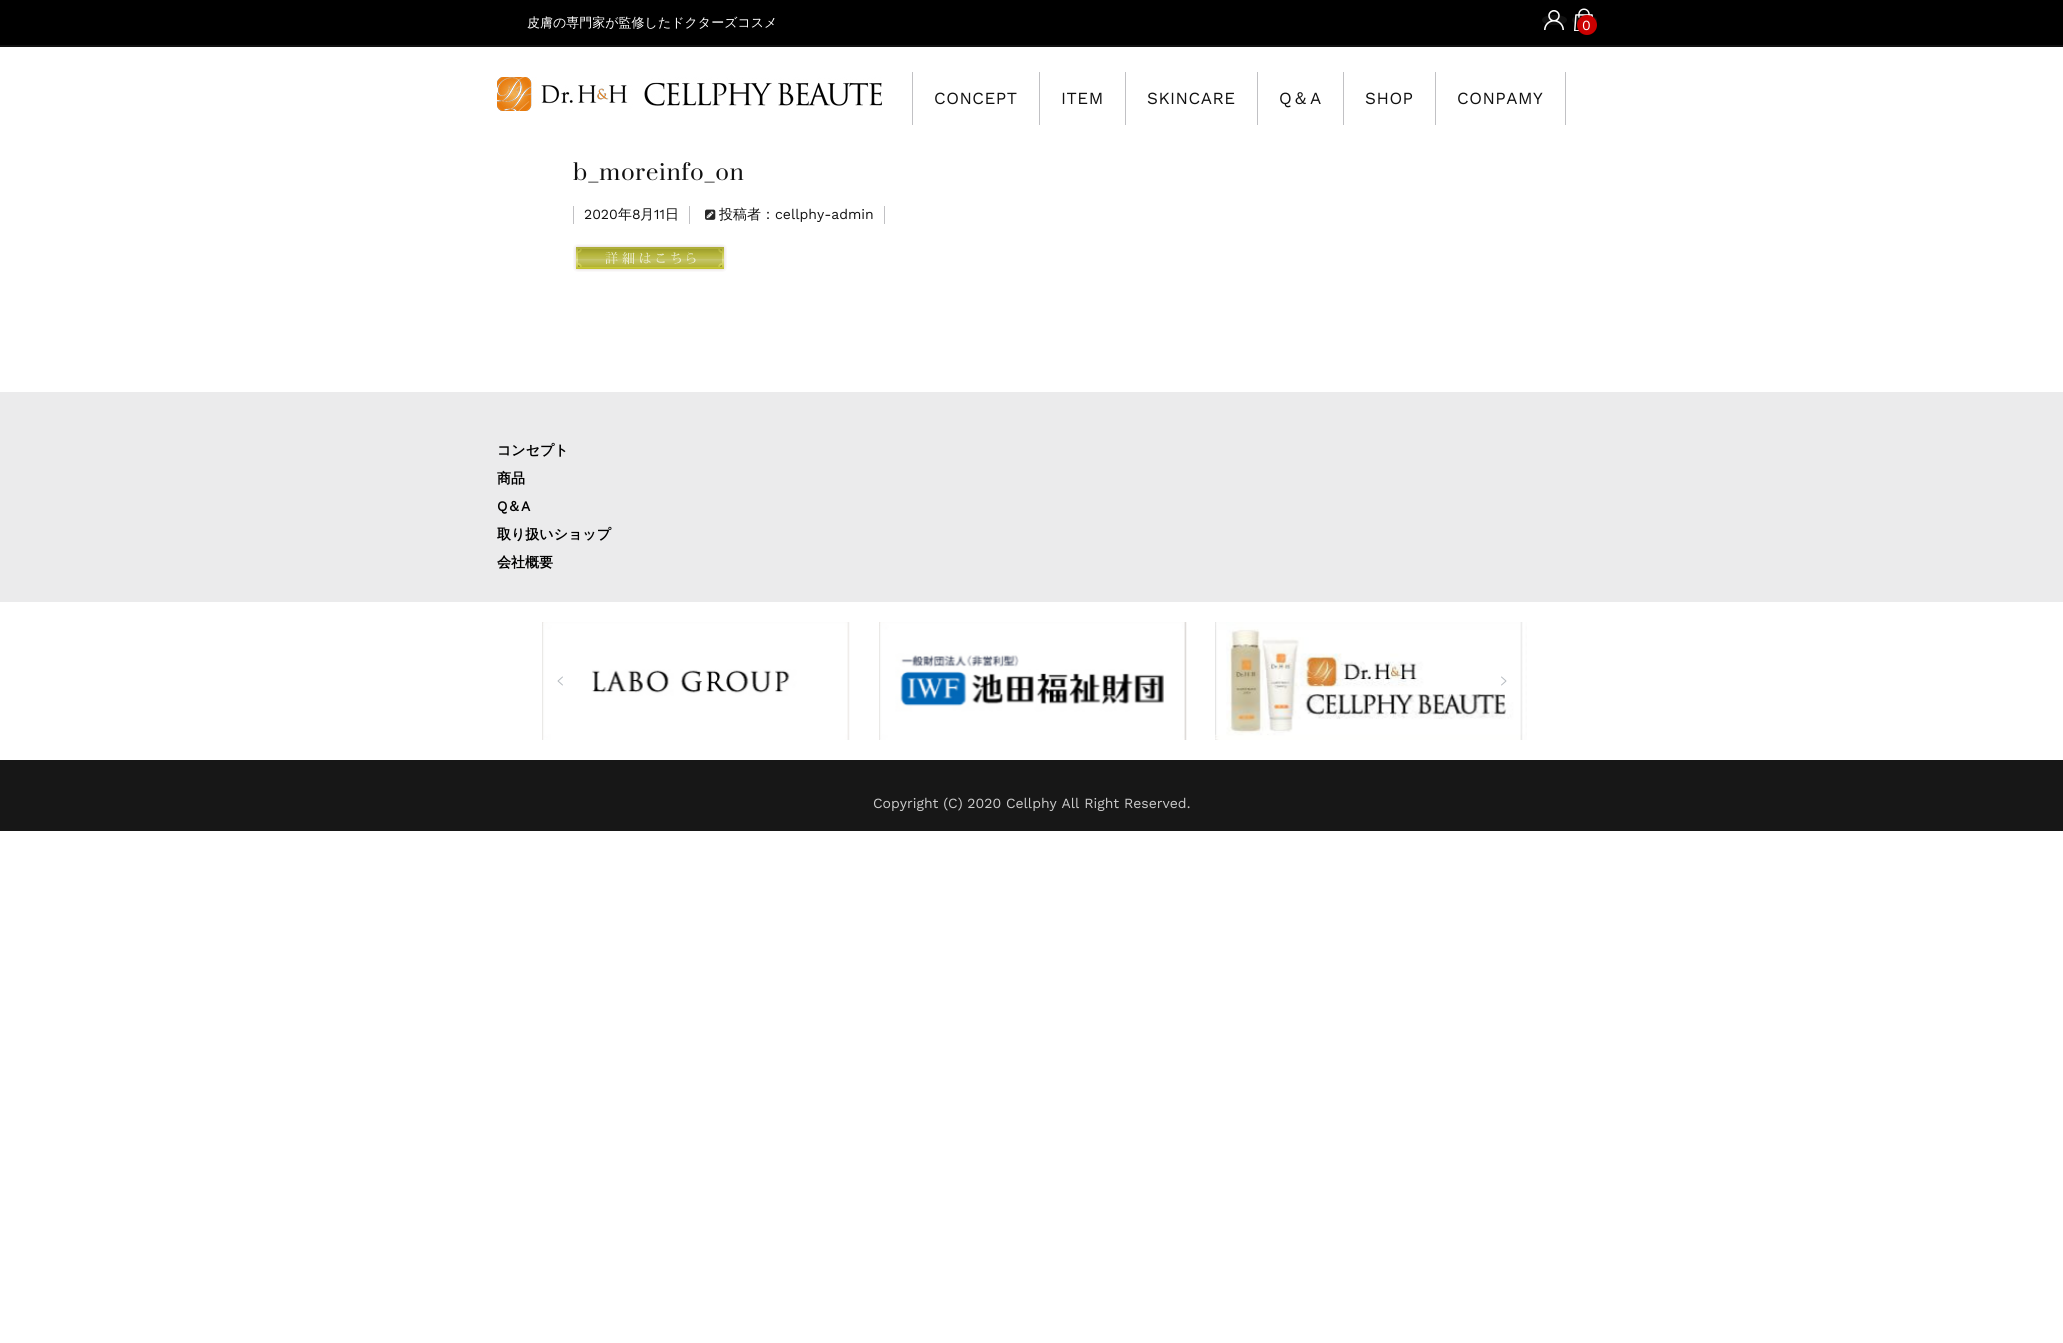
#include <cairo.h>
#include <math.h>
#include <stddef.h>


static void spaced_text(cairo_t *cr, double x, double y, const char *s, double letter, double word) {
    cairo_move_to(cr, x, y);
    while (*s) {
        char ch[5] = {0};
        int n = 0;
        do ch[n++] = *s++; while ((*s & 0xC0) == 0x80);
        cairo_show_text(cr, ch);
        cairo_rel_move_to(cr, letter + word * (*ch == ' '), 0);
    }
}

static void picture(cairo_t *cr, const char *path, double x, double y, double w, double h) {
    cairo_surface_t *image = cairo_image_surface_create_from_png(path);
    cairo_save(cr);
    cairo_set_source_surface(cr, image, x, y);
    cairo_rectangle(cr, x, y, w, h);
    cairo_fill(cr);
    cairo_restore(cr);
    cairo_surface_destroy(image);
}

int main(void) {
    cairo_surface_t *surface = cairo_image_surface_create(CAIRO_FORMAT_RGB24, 2063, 1343);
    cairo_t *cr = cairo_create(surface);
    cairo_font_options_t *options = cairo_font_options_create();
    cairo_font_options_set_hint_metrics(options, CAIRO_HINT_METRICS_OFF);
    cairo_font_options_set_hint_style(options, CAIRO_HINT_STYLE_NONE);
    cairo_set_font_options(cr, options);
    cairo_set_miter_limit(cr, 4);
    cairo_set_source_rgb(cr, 1, 1, 1);
    cairo_paint(cr);
    cairo_set_source_rgb(cr, 0, 0, 0);
    cairo_rectangle(cr, 0, 0, 2063, 45);
    cairo_fill(cr);
    cairo_select_font_face(cr, "WenQuanYi Zen Hei Medium", CAIRO_FONT_SLANT_NORMAL, CAIRO_FONT_WEIGHT_NORMAL);
    cairo_set_font_size(cr, 13);
    cairo_set_source_rgb(cr, 1, 1, 1);
    cairo_move_to(cr, 527, 27);
    cairo_show_text(cr, "皮膚の専門家が監修したドクターズコスメ");
    cairo_set_source_rgb(cr, 0.067, 0.067, 0.067);
    cairo_new_path(cr);
    cairo_move_to(cr, 1554.5, 15);
    cairo_curve_to(cr, 1561.5, 15, 1567, 17, 1567, 20);
    cairo_curve_to(cr, 1567, 23, 1561.5, 25, 1554.5, 25);
    cairo_curve_to(cr, 1547.5, 25, 1542, 23, 1542, 20);
    cairo_curve_to(cr, 1542, 17, 1547.5, 15, 1554.5, 15);
    cairo_close_path(cr);
    cairo_fill(cr);
    picture(cr, "img1.png", 1544, 10, 20, 20);
    cairo_new_path(cr);
    cairo_move_to(cr, 1584.5, 15);
    cairo_curve_to(cr, 1591.5, 15, 1597, 17, 1597, 20);
    cairo_curve_to(cr, 1597, 23, 1591.5, 25, 1584.5, 25);
    cairo_curve_to(cr, 1577.5, 25, 1572, 23, 1572, 20);
    cairo_curve_to(cr, 1572, 17, 1577.5, 15, 1584.5, 15);
    cairo_close_path(cr);
    cairo_fill(cr);
    picture(cr, "img2.png", 1574, 8, 19, 23);
    cairo_set_source_rgb(cr, 0.8, 0, 0);
    cairo_arc(cr, 1587, 25, 10, 0, 2 * M_PI);
    cairo_fill(cr);
    cairo_select_font_face(cr, "Work Sans", CAIRO_FONT_SLANT_NORMAL, CAIRO_FONT_WEIGHT_NORMAL);
    cairo_set_font_size(cr, 14);
    cairo_set_source_rgb(cr, 1, 1, 1);
    cairo_move_to(cr, 1582, 30);
    cairo_show_text(cr, "0");
    cairo_set_source_rgb(cr, 0.067, 0.067, 0.067);
    cairo_rectangle(cr, 0, 45, 2063, 2);
    cairo_fill(cr);
    picture(cr, "img3.png", 497, 77, 385, 34);
    cairo_set_source_rgb(cr, 0.757, 0.757, 0.769);
    cairo_rectangle(cr, 1039, 72, 1, 53);
    cairo_fill(cr);
    cairo_rectangle(cr, 912, 72, 1, 53);
    cairo_fill(cr);
    cairo_set_font_size(cr, 17);
    cairo_set_source_rgb(cr, 0.067, 0.067, 0.067);
    spaced_text(cr, 934, 104, "CONCEPT", 0.5, 0);
    cairo_set_source_rgb(cr, 0.757, 0.757, 0.769);
    cairo_rectangle(cr, 1125, 72, 1, 53);
    cairo_fill(cr);
    cairo_set_source_rgb(cr, 0.067, 0.067, 0.067);
    spaced_text(cr, 1061, 104, "ITEM", 0.5, 0);
    cairo_set_source_rgb(cr, 0.757, 0.757, 0.769);
    cairo_rectangle(cr, 1257, 72, 1, 53);
    cairo_fill(cr);
    cairo_set_source_rgb(cr, 0.067, 0.067, 0.067);
    spaced_text(cr, 1147, 104, "SKINCARE", 0.5, 0);
    cairo_set_source_rgb(cr, 0.757, 0.757, 0.769);
    cairo_rectangle(cr, 1343, 72, 1, 53);
    cairo_fill(cr);
    cairo_set_source_rgb(cr, 0.067, 0.067, 0.067);
    spaced_text(cr, 1279, 104, "Q", 0.5, 0);
    cairo_select_font_face(cr, "WenQuanYi Zen Hei Medium", CAIRO_FONT_SLANT_NORMAL, CAIRO_FONT_WEIGHT_NORMAL);
    spaced_text(cr, 1292, 104, "＆", 0.5, 0);
    cairo_select_font_face(cr, "Work Sans", CAIRO_FONT_SLANT_NORMAL, CAIRO_FONT_WEIGHT_NORMAL);
    spaced_text(cr, 1310, 104, "A", 0.5, 0);
    cairo_set_source_rgb(cr, 0.757, 0.757, 0.769);
    cairo_rectangle(cr, 1435, 72, 1, 53);
    cairo_fill(cr);
    cairo_set_source_rgb(cr, 0.067, 0.067, 0.067);
    spaced_text(cr, 1365, 104, "SHOP", 0.5, 0);
    cairo_set_source_rgb(cr, 0.757, 0.757, 0.769);
    cairo_rectangle(cr, 1565, 72, 1, 53);
    cairo_fill(cr);
    cairo_set_source_rgb(cr, 0.067, 0.067, 0.067);
    spaced_text(cr, 1457, 104, "CONPAMY", 0.5, 0);
    cairo_select_font_face(cr, "Suranna", CAIRO_FONT_SLANT_NORMAL, CAIRO_FONT_WEIGHT_NORMAL);
    cairo_set_font_size(cr, 28);
    spaced_text(cr, 573, 180, "b_moreinfo_on", 1, 0);
    cairo_set_source_rgb(cr, 0.757, 0.757, 0.769);
    cairo_rectangle(cr, 689, 206, 1, 18);
    cairo_fill(cr);
    cairo_rectangle(cr, 573, 206, 1, 18);
    cairo_fill(cr);
    cairo_select_font_face(cr, "Work Sans", CAIRO_FONT_SLANT_NORMAL, CAIRO_FONT_WEIGHT_NORMAL);
    cairo_set_font_size(cr, 14);
    cairo_set_source_rgb(cr, 0.067, 0.067, 0.067);
    cairo_move_to(cr, 584, 219);
    cairo_show_text(cr, "2020");
    cairo_select_font_face(cr, "WenQuanYi Zen Hei Medium", CAIRO_FONT_SLANT_NORMAL, CAIRO_FONT_WEIGHT_NORMAL);
    cairo_move_to(cr, 618, 219);
    cairo_show_text(cr, "年");
    cairo_select_font_face(cr, "Work Sans", CAIRO_FONT_SLANT_NORMAL, CAIRO_FONT_WEIGHT_NORMAL);
    cairo_move_to(cr, 632, 219);
    cairo_show_text(cr, "8");
    cairo_select_font_face(cr, "WenQuanYi Zen Hei Medium", CAIRO_FONT_SLANT_NORMAL, CAIRO_FONT_WEIGHT_NORMAL);
    cairo_move_to(cr, 640, 219);
    cairo_show_text(cr, "月");
    cairo_select_font_face(cr, "Work Sans", CAIRO_FONT_SLANT_NORMAL, CAIRO_FONT_WEIGHT_NORMAL);
    cairo_move_to(cr, 654, 219);
    cairo_show_text(cr, "11");
    cairo_select_font_face(cr, "WenQuanYi Zen Hei Medium", CAIRO_FONT_SLANT_NORMAL, CAIRO_FONT_WEIGHT_NORMAL);
    cairo_move_to(cr, 665, 219);
    cairo_show_text(cr, "日");
    cairo_set_source_rgb(cr, 0.757, 0.757, 0.769);
    cairo_rectangle(cr, 884, 206, 1, 18);
    cairo_fill(cr);
    picture(cr, "img4.png", 705, 209, 11, 11);
    cairo_set_source_rgb(cr, 0.067, 0.067, 0.067);
    cairo_move_to(cr, 719, 219);
    cairo_show_text(cr, "投稿者：");
    cairo_select_font_face(cr, "Work Sans", CAIRO_FONT_SLANT_NORMAL, CAIRO_FONT_WEIGHT_NORMAL);
    cairo_move_to(cr, 775, 219);
    cairo_show_text(cr, "cellphy-admin");
    picture(cr, "img5.png", 573, 244, 154, 28);
    cairo_set_source_rgb(cr, 0.918, 0.918, 0.922);
    cairo_rectangle(cr, 0, 392, 2063, 210);
    cairo_fill(cr);
    cairo_select_font_face(cr, "WenQuanYi Zen Hei", CAIRO_FONT_SLANT_NORMAL, CAIRO_FONT_WEIGHT_BOLD);
    cairo_set_source_rgb(cr, 0, 0, 0);
    cairo_move_to(cr, 497, 455);
    cairo_show_text(cr, "コンセプト");
    cairo_move_to(cr, 497, 483);
    cairo_show_text(cr, "商品");
    cairo_select_font_face(cr, "Work Sans", CAIRO_FONT_SLANT_NORMAL, CAIRO_FONT_WEIGHT_BOLD);
    cairo_move_to(cr, 497, 511);
    cairo_show_text(cr, "Q");
    cairo_select_font_face(cr, "WenQuanYi Zen Hei", CAIRO_FONT_SLANT_NORMAL, CAIRO_FONT_WEIGHT_BOLD);
    cairo_move_to(cr, 507, 511);
    cairo_show_text(cr, "＆");
    cairo_select_font_face(cr, "Work Sans", CAIRO_FONT_SLANT_NORMAL, CAIRO_FONT_WEIGHT_BOLD);
    cairo_move_to(cr, 521, 511);
    cairo_show_text(cr, "A");
    cairo_select_font_face(cr, "WenQuanYi Zen Hei", CAIRO_FONT_SLANT_NORMAL, CAIRO_FONT_WEIGHT_BOLD);
    cairo_move_to(cr, 497, 539);
    cairo_show_text(cr, "取り扱いショップ");
    cairo_move_to(cr, 497, 567);
    cairo_show_text(cr, "会社概要");
    picture(cr, "img6.png", 542, 622, 308, 118);
    picture(cr, "img7.png", 879, 622, 308, 118);
    picture(cr, "img8.png", 1215, 622, 312, 118);
    cairo_new_path(cr);
    cairo_move_to(cr, 562.5, 677);
    cairo_line_to(cr, 558, 681);
    cairo_line_to(cr, 562.5, 685);
    cairo_set_source_rgb(cr, 0.714, 0.733, 0.753);
    cairo_set_line_width(cr, 1);
    cairo_set_line_cap(cr, CAIRO_LINE_CAP_ROUND);
    cairo_set_line_join(cr, CAIRO_LINE_JOIN_ROUND);
    cairo_stroke(cr);
    cairo_set_source_rgba(cr, 1, 1, 1, 0.5);
    cairo_arc(cr, 1503, 681, 14, 0, 2 * M_PI);
    cairo_fill(cr);
    cairo_new_path(cr);
    cairo_move_to(cr, 1501.5, 677);
    cairo_line_to(cr, 1506, 681);
    cairo_line_to(cr, 1501.5, 685);
    cairo_set_source_rgb(cr, 0.714, 0.733, 0.753);
    cairo_stroke(cr);
    cairo_set_source_rgb(cr, 0.09, 0.09, 0.09);
    cairo_rectangle(cr, 0, 760, 2063, 71);
    cairo_fill(cr);
    cairo_select_font_face(cr, "Work Sans", CAIRO_FONT_SLANT_NORMAL, CAIRO_FONT_WEIGHT_NORMAL);
    cairo_set_source_rgb(cr, 0.8, 0.8, 0.8);
    cairo_move_to(cr, 873, 808);
    cairo_show_text(cr, "Copyright (C) 2020 Cellphy All Right Reserved.");
    cairo_surface_write_to_png(surface, "page.png");
    cairo_font_options_destroy(options);
    cairo_destroy(cr);
    cairo_surface_destroy(surface);
    return 0;
}
